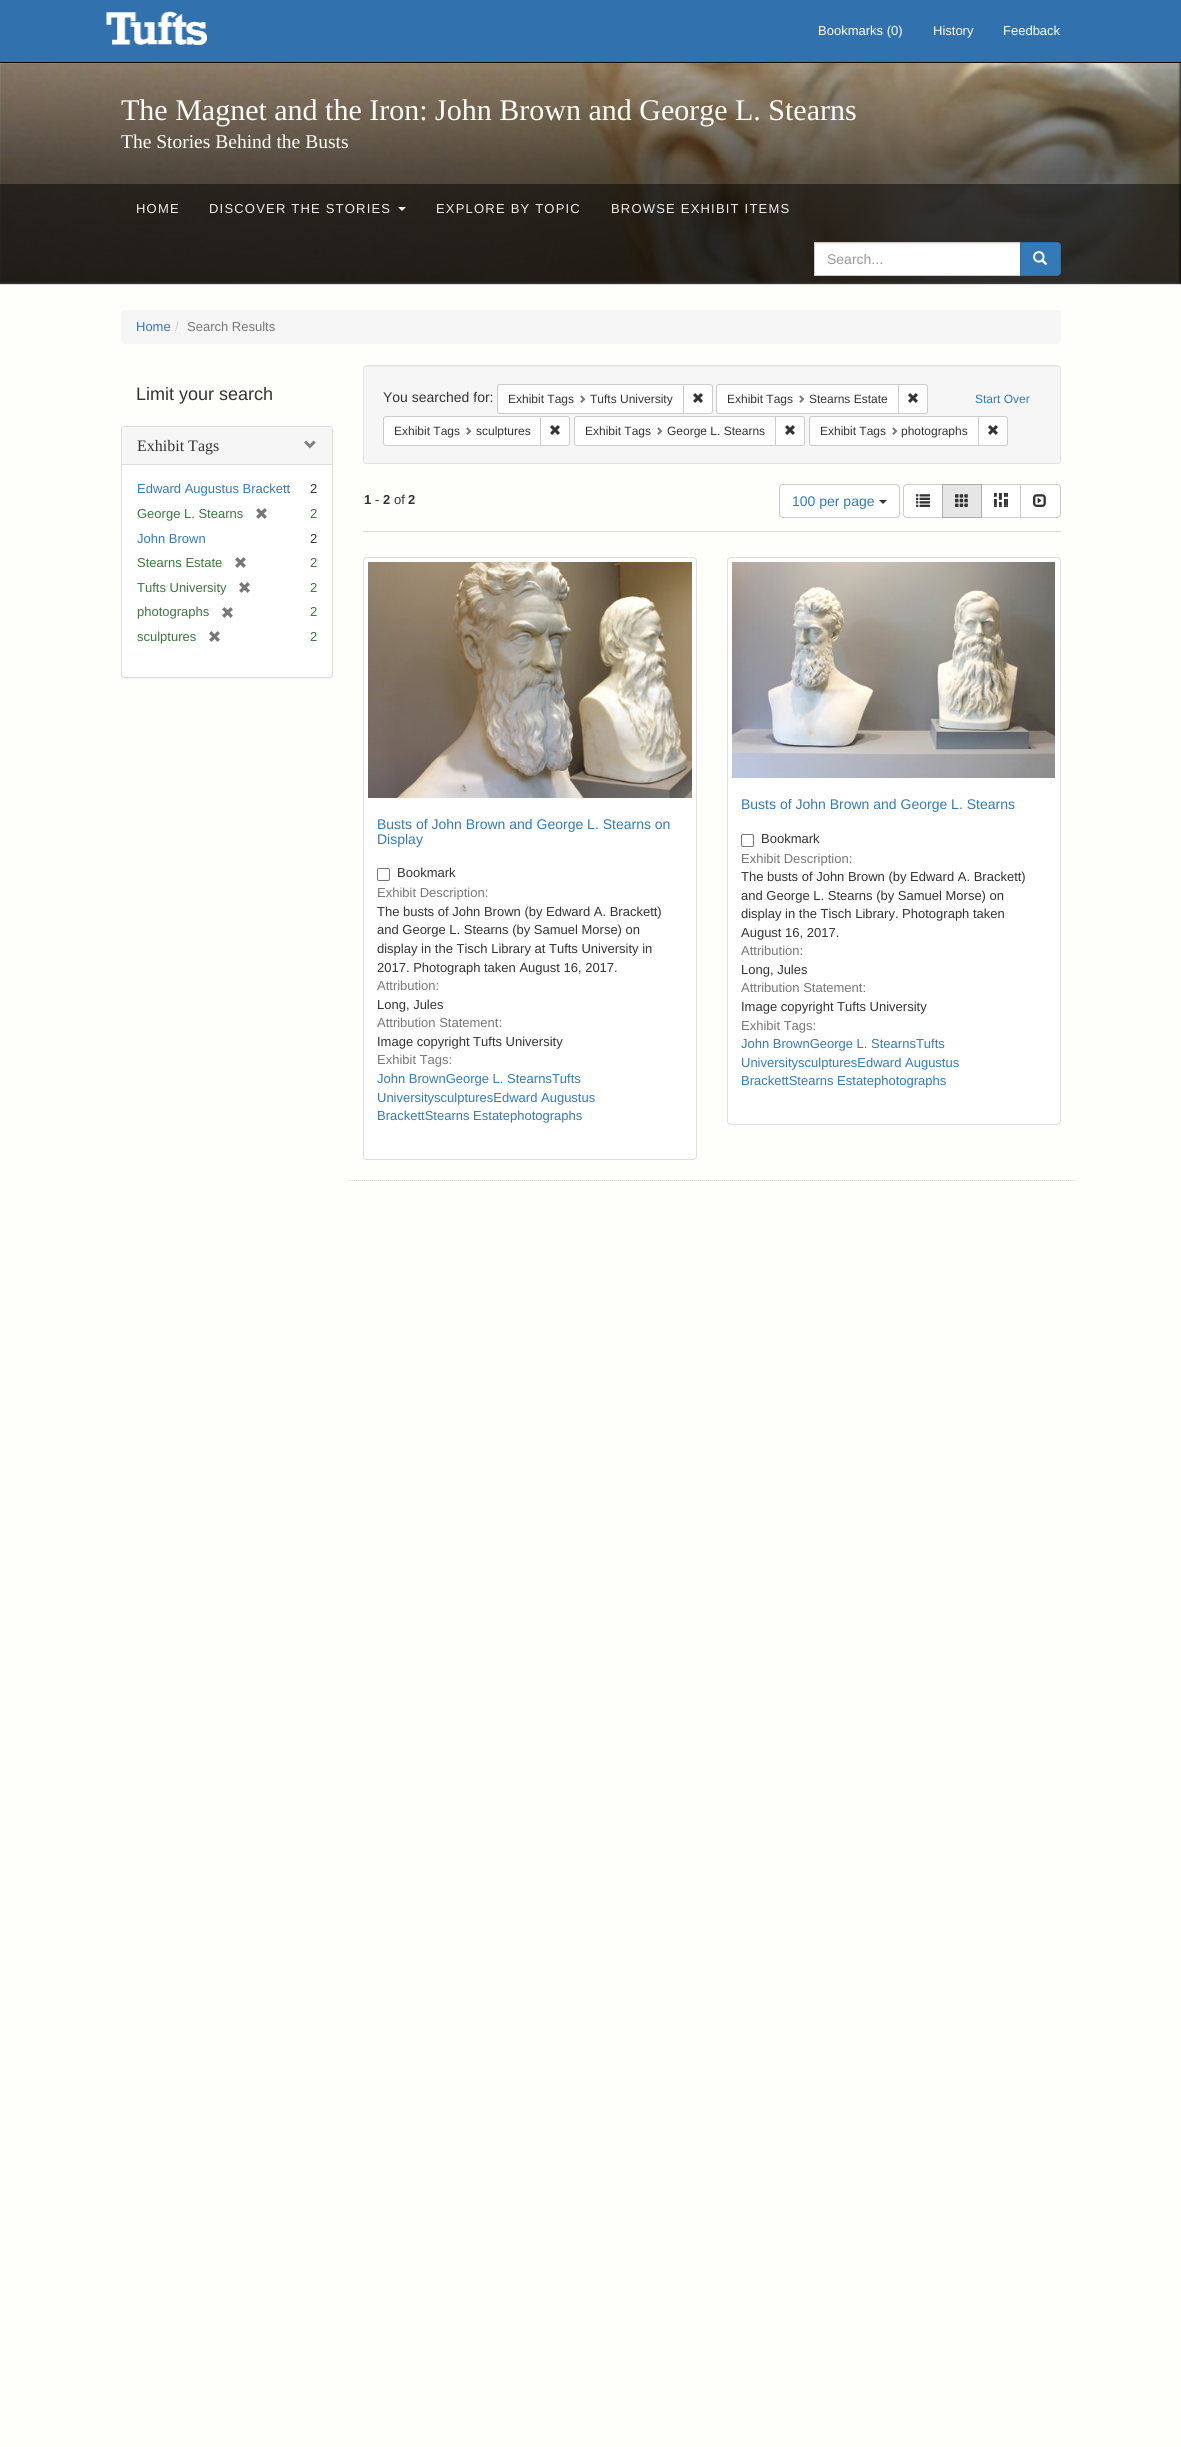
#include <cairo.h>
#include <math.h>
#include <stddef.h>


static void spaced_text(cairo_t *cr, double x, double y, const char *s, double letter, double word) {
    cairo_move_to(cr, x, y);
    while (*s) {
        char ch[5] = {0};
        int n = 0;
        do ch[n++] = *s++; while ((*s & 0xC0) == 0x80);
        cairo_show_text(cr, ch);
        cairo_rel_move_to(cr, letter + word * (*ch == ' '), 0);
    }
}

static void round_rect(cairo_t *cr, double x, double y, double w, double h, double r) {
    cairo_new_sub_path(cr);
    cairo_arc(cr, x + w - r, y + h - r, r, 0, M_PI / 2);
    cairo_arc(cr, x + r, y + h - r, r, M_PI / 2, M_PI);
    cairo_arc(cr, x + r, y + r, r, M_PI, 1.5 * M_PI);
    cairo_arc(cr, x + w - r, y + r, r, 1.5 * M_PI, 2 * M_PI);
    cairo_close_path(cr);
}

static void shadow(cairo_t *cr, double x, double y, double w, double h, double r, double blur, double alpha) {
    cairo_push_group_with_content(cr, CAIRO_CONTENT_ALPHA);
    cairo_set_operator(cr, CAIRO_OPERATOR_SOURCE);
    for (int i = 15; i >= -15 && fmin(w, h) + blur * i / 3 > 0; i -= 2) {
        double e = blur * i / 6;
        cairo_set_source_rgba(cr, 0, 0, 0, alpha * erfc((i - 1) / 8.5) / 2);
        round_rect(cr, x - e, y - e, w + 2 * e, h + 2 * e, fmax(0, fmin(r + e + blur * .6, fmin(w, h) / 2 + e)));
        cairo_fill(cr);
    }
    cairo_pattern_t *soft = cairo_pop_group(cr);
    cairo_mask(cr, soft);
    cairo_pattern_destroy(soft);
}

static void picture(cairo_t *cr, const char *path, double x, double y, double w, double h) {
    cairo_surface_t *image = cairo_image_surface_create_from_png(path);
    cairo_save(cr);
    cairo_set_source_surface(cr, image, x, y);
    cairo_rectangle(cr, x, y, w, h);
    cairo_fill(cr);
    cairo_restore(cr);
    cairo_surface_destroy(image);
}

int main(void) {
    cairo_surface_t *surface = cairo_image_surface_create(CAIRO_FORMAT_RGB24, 1181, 2447);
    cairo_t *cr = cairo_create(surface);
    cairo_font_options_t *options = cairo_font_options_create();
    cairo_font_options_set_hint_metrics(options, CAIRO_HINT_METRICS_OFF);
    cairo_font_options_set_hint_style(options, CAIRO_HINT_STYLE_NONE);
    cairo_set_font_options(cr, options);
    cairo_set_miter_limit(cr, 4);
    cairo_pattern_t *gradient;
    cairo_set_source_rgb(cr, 0.996, 0.996, 0.98);
    cairo_paint(cr);
    cairo_set_source_rgb(cr, 0.961, 0.961, 0.961);
    cairo_rectangle(cr, 0, 63, 1181, 221);
    cairo_fill(cr);
    cairo_set_source_rgb(cr, 0.906, 0.906, 0.906);
    cairo_rectangle(cr, 0, 284, 1181, 1);
    cairo_fill(cr);
    picture(cr, "img2.png", 0, 63, 1181, 222);
    cairo_set_source_rgb(cr, 0, 0, 0);
    shadow(cr, 1180, 62, 1, 221, 0, 1, 1);
    cairo_set_source_rgb(cr, 0.192, 0.447, 0.682);
    cairo_rectangle(cr, 0, 0, 1181, 62);
    cairo_fill(cr);
    cairo_set_source_rgb(cr, 0.035, 0.035, 0.035);
    cairo_rectangle(cr, 0, 62, 1181, 1);
    cairo_fill(cr);
    picture(cr, "img1.png", 106, 11, 101, 34);
    cairo_select_font_face(cr, "Liberation Sans", CAIRO_FONT_SLANT_NORMAL, CAIRO_FONT_WEIGHT_NORMAL);
    cairo_set_font_size(cr, 13);
    cairo_set_source_rgb(cr, 0.996, 0.996, 0.98);
    cairo_move_to(cr, 818, 35);
    cairo_show_text(cr, "Bookmarks (0)");
    cairo_move_to(cr, 933, 35);
    cairo_show_text(cr, "History");
    cairo_move_to(cr, 1003, 35);
    cairo_show_text(cr, "Feedback");
    gradient = cairo_pattern_create_linear(591, 63, 591, 284);
    cairo_pattern_add_color_stop_rgba(gradient, 0, 0, 0, 0, 0);
    cairo_pattern_add_color_stop_rgba(gradient, 0.5, 0, 0, 0, 0.4);
    cairo_pattern_add_color_stop_rgba(gradient, 1, 0, 0, 0, 0.5);
    cairo_set_source(cr, gradient);
    cairo_pattern_destroy(gradient);
    cairo_rectangle(cr, 0, 69, 1181, 215);
    cairo_fill(cr);
    cairo_select_font_face(cr, "Liberation Serif", CAIRO_FONT_SLANT_NORMAL, CAIRO_FONT_WEIGHT_NORMAL);
    cairo_set_font_size(cr, 30);
    cairo_set_source_rgb(cr, 0.996, 0.996, 0.98);
    cairo_move_to(cr, 121, 120);
    cairo_show_text(cr, "The Magnet and the Iron: John Brown and George L. Stearns");
    cairo_set_font_size(cr, 19.5);
    cairo_move_to(cr, 121, 148);
    cairo_show_text(cr, "The Stories Behind the Busts");
    cairo_set_source_rgba(cr, 0, 0, 0, 0.5);
    cairo_rectangle(cr, 0, 184, 1181, 100);
    cairo_fill(cr);
    cairo_select_font_face(cr, "Liberation Sans", CAIRO_FONT_SLANT_NORMAL, CAIRO_FONT_WEIGHT_NORMAL);
    cairo_set_font_size(cr, 13);
    cairo_set_source_rgb(cr, 0.933, 0.933, 0.933);
    spaced_text(cr, 136, 213, "HOME", 1.2, 0);
    spaced_text(cr, 209, 213, "DISCOVER THE STORIES", 1.2, 0);
    cairo_new_path(cr);
    cairo_move_to(cr, 398, 207);
    cairo_line_to(cr, 406, 207);
    cairo_line_to(cr, 402, 211);
    cairo_close_path(cr);
    cairo_fill(cr);
    spaced_text(cr, 436, 213, "EXPLORE BY TOPIC", 1.2, 0);
    spaced_text(cr, 611, 213, "BROWSE EXHIBIT ITEMS", 1.2, 0);
    cairo_set_source_rgb(cr, 1, 1, 1);
    cairo_rectangle(cr, 815, 244, 205, 31);
    cairo_fill(cr);
    cairo_set_source_rgb(cr, 0.925, 0.925, 0.925);
    cairo_rectangle(cr, 815, 243, 205, 1);
    cairo_fill(cr);
    cairo_rectangle(cr, 814.5, 242.5, 206, 33);
    cairo_set_source_rgb(cr, 0.8, 0.8, 0.8);
    cairo_set_line_width(cr, 1);
    cairo_stroke(cr);
    cairo_set_font_size(cr, 14);
    cairo_set_source_rgb(cr, 0.6, 0.6, 0.6);
    cairo_move_to(cr, 827, 264);
    cairo_show_text(cr, "Search...");
    cairo_set_source_rgb(cr, 0.2, 0.478, 0.718);
    cairo_new_path(cr);
    cairo_move_to(cr, 1020.5, 242.5);
    cairo_line_to(cr, 1057, 242.5);
    cairo_curve_to(cr, 1059, 242.5, 1060.5, 244, 1060.5, 246);
    cairo_line_to(cr, 1060.5, 272);
    cairo_curve_to(cr, 1060.5, 274, 1059, 275.5, 1057, 275.5);
    cairo_line_to(cr, 1020.5, 275.5);
    cairo_close_path(cr);
    cairo_fill_preserve(cr);
    cairo_set_source_rgb(cr, 0.18, 0.427, 0.643);
    cairo_stroke(cr);
    picture(cr, "img3.png", 1033, 251, 15, 14);
    cairo_set_source_rgb(cr, 0.961, 0.961, 0.961);
    round_rect(cr, 121, 310, 940, 34, 4);
    cairo_fill(cr);
    cairo_set_font_size(cr, 13);
    cairo_set_source_rgb(cr, 0.2, 0.478, 0.718);
    cairo_move_to(cr, 136, 331);
    cairo_show_text(cr, "Home");
    cairo_set_source_rgb(cr, 0.8, 0.8, 0.8);
    cairo_move_to(cr, 175, 331);
    cairo_show_text(cr, "/");
    cairo_set_source_rgb(cr, 0.467, 0.467, 0.467);
    cairo_move_to(cr, 187, 331);
    cairo_show_text(cr, "Search Results");
    cairo_set_font_size(cr, 18);
    cairo_set_source_rgb(cr, 0.2, 0.2, 0.2);
    cairo_move_to(cr, 136, 400);
    cairo_show_text(cr, "Limit your search");
    cairo_set_source_rgb(cr, 0, 0, 0);
    shadow(cr, 121, 427, 212, 252, 4, 0.5, 0.05);
    cairo_set_source_rgb(cr, 1, 1, 1);
    round_rect(cr, 121.5, 426.5, 211, 251, 3.5);
    cairo_fill_preserve(cr);
    cairo_set_source_rgb(cr, 0.867, 0.867, 0.867);
    cairo_stroke(cr);
    cairo_set_source_rgb(cr, 0.961, 0.961, 0.961);
    cairo_new_path(cr);
    cairo_move_to(cr, 125, 427);
    cairo_line_to(cr, 329, 427);
    cairo_curve_to(cr, 330.5, 427, 332, 428.5, 332, 430);
    cairo_line_to(cr, 332, 464);
    cairo_line_to(cr, 122, 464);
    cairo_line_to(cr, 122, 430);
    cairo_curve_to(cr, 122, 428.5, 123.5, 427, 125, 427);
    cairo_close_path(cr);
    cairo_fill(cr);
    cairo_select_font_face(cr, "Liberation Serif", CAIRO_FONT_SLANT_NORMAL, CAIRO_FONT_WEIGHT_NORMAL);
    cairo_set_font_size(cr, 16);
    cairo_set_source_rgb(cr, 0.2, 0.2, 0.2);
    cairo_move_to(cr, 137, 451);
    cairo_show_text(cr, "Exhibit Tags");
    picture(cr, "img4.png", 304, 440, 12, 9);
    cairo_set_source_rgb(cr, 0.867, 0.867, 0.867);
    cairo_rectangle(cr, 122, 464, 210, 1);
    cairo_fill(cr);
    cairo_select_font_face(cr, "Liberation Sans", CAIRO_FONT_SLANT_NORMAL, CAIRO_FONT_WEIGHT_NORMAL);
    cairo_set_font_size(cr, 13);
    cairo_set_source_rgb(cr, 0.2, 0.478, 0.718);
    cairo_move_to(cr, 137, 493);
    cairo_show_text(cr, "Edward Augustus Brackett");
    cairo_set_source_rgb(cr, 0.2, 0.2, 0.2);
    cairo_move_to(cr, 310, 493);
    cairo_show_text(cr, "2");
    cairo_set_source_rgb(cr, 0.235, 0.463, 0.239);
    cairo_move_to(cr, 137, 518);
    cairo_show_text(cr, "George L. Stearns");
    picture(cr, "img5.png", 256, 508, 11, 11);
    cairo_move_to(cr, 310, 518);
    cairo_show_text(cr, "2");
    cairo_set_source_rgb(cr, 0.2, 0.478, 0.718);
    cairo_move_to(cr, 137, 543);
    cairo_show_text(cr, "John Brown");
    cairo_set_source_rgb(cr, 0.2, 0.2, 0.2);
    cairo_move_to(cr, 310, 543);
    cairo_show_text(cr, "2");
    cairo_set_source_rgb(cr, 0.235, 0.463, 0.239);
    cairo_move_to(cr, 137, 567);
    cairo_show_text(cr, "Stearns Estate");
    picture(cr, "img5.png", 235, 557, 11, 11);
    cairo_move_to(cr, 310, 567);
    cairo_show_text(cr, "2");
    cairo_move_to(cr, 137, 592);
    cairo_show_text(cr, "Tufts University");
    picture(cr, "img5.png", 239, 582, 11, 11);
    cairo_move_to(cr, 310, 592);
    cairo_show_text(cr, "2");
    cairo_move_to(cr, 137, 616);
    cairo_show_text(cr, "photographs");
    picture(cr, "img5.png", 222, 607, 11, 11);
    cairo_move_to(cr, 310, 616);
    cairo_show_text(cr, "2");
    cairo_move_to(cr, 137, 641);
    cairo_show_text(cr, "sculptures");
    picture(cr, "img5.png", 209, 631, 11, 11);
    cairo_move_to(cr, 310, 641);
    cairo_show_text(cr, "2");
    cairo_set_source_rgb(cr, 0.961, 0.961, 0.961);
    round_rect(cr, 363, 365, 698, 99, 4);
    cairo_fill(cr);
    cairo_set_source_rgb(cr, 0.914, 0.914, 0.914);
    cairo_new_path(cr);
    cairo_move_to(cr, 367, 367);
    cairo_line_to(cr, 1057, 367);
    cairo_curve_to(cr, 1059, 367, 1060, 368, 1060, 370);
    cairo_curve_to(cr, 1060, 368, 1059, 366, 1057, 366);
    cairo_line_to(cr, 367, 366);
    cairo_curve_to(cr, 365, 366, 364, 368, 364, 370);
    cairo_curve_to(cr, 364, 368, 365, 367, 367, 367);
    cairo_close_path(cr);
    cairo_fill(cr);
    round_rect(cr, 363.5, 365.5, 697, 98, 3.5);
    cairo_set_source_rgb(cr, 0.89, 0.89, 0.89);
    cairo_stroke(cr);
    cairo_set_font_size(cr, 14);
    cairo_set_source_rgb(cr, 0.2, 0.2, 0.2);
    cairo_move_to(cr, 383, 402);
    cairo_show_text(cr, "You searched for:");
    cairo_set_source_rgb(cr, 1, 1, 1);
    cairo_new_path(cr);
    cairo_move_to(cr, 500, 384.5);
    cairo_line_to(cr, 683.5, 384.5);
    cairo_line_to(cr, 683.5, 413.5);
    cairo_line_to(cr, 500, 413.5);
    cairo_curve_to(cr, 498.5, 413.5, 497.5, 412.5, 497.5, 411);
    cairo_line_to(cr, 497.5, 387);
    cairo_curve_to(cr, 497.5, 385.5, 498.5, 384.5, 500, 384.5);
    cairo_close_path(cr);
    cairo_fill_preserve(cr);
    cairo_set_source_rgb(cr, 0.8, 0.8, 0.8);
    cairo_stroke(cr);
    cairo_set_font_size(cr, 12);
    cairo_set_source_rgb(cr, 0.2, 0.2, 0.2);
    cairo_move_to(cr, 508, 403);
    cairo_show_text(cr, "Exhibit Tags");
    picture(cr, "img6.png", 580, 395, 6, 8);
    cairo_move_to(cr, 590, 403);
    cairo_show_text(cr, "Tufts University");
    cairo_set_source_rgb(cr, 1, 1, 1);
    cairo_new_path(cr);
    cairo_move_to(cr, 683.5, 384.5);
    cairo_line_to(cr, 710, 384.5);
    cairo_curve_to(cr, 711.5, 384.5, 712.5, 385.5, 712.5, 387);
    cairo_line_to(cr, 712.5, 411);
    cairo_curve_to(cr, 712.5, 412.5, 711.5, 413.5, 710, 413.5);
    cairo_line_to(cr, 683.5, 413.5);
    cairo_close_path(cr);
    cairo_fill_preserve(cr);
    cairo_set_source_rgb(cr, 0.8, 0.8, 0.8);
    cairo_stroke(cr);
    picture(cr, "img7.png", 693, 393, 10, 10);
    cairo_set_source_rgb(cr, 1, 1, 1);
    cairo_new_path(cr);
    cairo_move_to(cr, 719, 384.5);
    cairo_line_to(cr, 898.5, 384.5);
    cairo_line_to(cr, 898.5, 413.5);
    cairo_line_to(cr, 719, 413.5);
    cairo_curve_to(cr, 717.5, 413.5, 716.5, 412.5, 716.5, 411);
    cairo_line_to(cr, 716.5, 387);
    cairo_curve_to(cr, 716.5, 385.5, 717.5, 384.5, 719, 384.5);
    cairo_close_path(cr);
    cairo_fill_preserve(cr);
    cairo_set_source_rgb(cr, 0.8, 0.8, 0.8);
    cairo_stroke(cr);
    cairo_set_source_rgb(cr, 0.2, 0.2, 0.2);
    cairo_move_to(cr, 727, 403);
    cairo_show_text(cr, "Exhibit Tags");
    picture(cr, "img6.png", 799, 395, 6, 8);
    cairo_move_to(cr, 809, 403);
    cairo_show_text(cr, "Stearns Estate");
    cairo_set_source_rgb(cr, 1, 1, 1);
    cairo_new_path(cr);
    cairo_move_to(cr, 898.5, 384.5);
    cairo_line_to(cr, 925, 384.5);
    cairo_curve_to(cr, 926.5, 384.5, 927.5, 385.5, 927.5, 387);
    cairo_line_to(cr, 927.5, 411);
    cairo_curve_to(cr, 927.5, 412.5, 926.5, 413.5, 925, 413.5);
    cairo_line_to(cr, 898.5, 413.5);
    cairo_close_path(cr);
    cairo_fill_preserve(cr);
    cairo_set_source_rgb(cr, 0.8, 0.8, 0.8);
    cairo_stroke(cr);
    picture(cr, "img7.png", 908, 393, 10, 10);
    cairo_set_source_rgb(cr, 0.2, 0.478, 0.718);
    cairo_move_to(cr, 975, 403);
    cairo_show_text(cr, "Start Over");
    cairo_set_source_rgb(cr, 1, 1, 1);
    cairo_new_path(cr);
    cairo_move_to(cr, 386, 416.5);
    cairo_line_to(cr, 540.5, 416.5);
    cairo_line_to(cr, 540.5, 445.5);
    cairo_line_to(cr, 386, 445.5);
    cairo_curve_to(cr, 384.5, 445.5, 383.5, 444.5, 383.5, 443);
    cairo_line_to(cr, 383.5, 419);
    cairo_curve_to(cr, 383.5, 417.5, 384.5, 416.5, 386, 416.5);
    cairo_close_path(cr);
    cairo_fill_preserve(cr);
    cairo_set_source_rgb(cr, 0.8, 0.8, 0.8);
    cairo_stroke(cr);
    cairo_set_source_rgb(cr, 0.2, 0.2, 0.2);
    cairo_move_to(cr, 394, 435);
    cairo_show_text(cr, "Exhibit Tags");
    picture(cr, "img6.png", 466, 427, 6, 8);
    cairo_move_to(cr, 476, 435);
    cairo_show_text(cr, "sculptures");
    cairo_set_source_rgb(cr, 1, 1, 1);
    cairo_new_path(cr);
    cairo_move_to(cr, 540.5, 416.5);
    cairo_line_to(cr, 567, 416.5);
    cairo_curve_to(cr, 568.5, 416.5, 569.5, 417.5, 569.5, 419);
    cairo_line_to(cr, 569.5, 443);
    cairo_curve_to(cr, 569.5, 444.5, 568.5, 445.5, 567, 445.5);
    cairo_line_to(cr, 540.5, 445.5);
    cairo_close_path(cr);
    cairo_fill_preserve(cr);
    cairo_set_source_rgb(cr, 0.8, 0.8, 0.8);
    cairo_stroke(cr);
    picture(cr, "img7.png", 550, 425, 10, 10);
    cairo_set_source_rgb(cr, 1, 1, 1);
    cairo_new_path(cr);
    cairo_move_to(cr, 577, 416.5);
    cairo_line_to(cr, 775.5, 416.5);
    cairo_line_to(cr, 775.5, 445.5);
    cairo_line_to(cr, 577, 445.5);
    cairo_curve_to(cr, 575.5, 445.5, 574.5, 444.5, 574.5, 443);
    cairo_line_to(cr, 574.5, 419);
    cairo_curve_to(cr, 574.5, 417.5, 575.5, 416.5, 577, 416.5);
    cairo_close_path(cr);
    cairo_fill_preserve(cr);
    cairo_set_source_rgb(cr, 0.8, 0.8, 0.8);
    cairo_stroke(cr);
    cairo_set_source_rgb(cr, 0.2, 0.2, 0.2);
    cairo_move_to(cr, 585, 435);
    cairo_show_text(cr, "Exhibit Tags");
    picture(cr, "img6.png", 657, 427, 6, 8);
    cairo_move_to(cr, 667, 435);
    cairo_show_text(cr, "George L. Stearns");
    cairo_set_source_rgb(cr, 1, 1, 1);
    cairo_new_path(cr);
    cairo_move_to(cr, 775.5, 416.5);
    cairo_line_to(cr, 802, 416.5);
    cairo_curve_to(cr, 803.5, 416.5, 804.5, 417.5, 804.5, 419);
    cairo_line_to(cr, 804.5, 443);
    cairo_curve_to(cr, 804.5, 444.5, 803.5, 445.5, 802, 445.5);
    cairo_line_to(cr, 775.5, 445.5);
    cairo_close_path(cr);
    cairo_fill_preserve(cr);
    cairo_set_source_rgb(cr, 0.8, 0.8, 0.8);
    cairo_stroke(cr);
    picture(cr, "img7.png", 785, 425, 10, 10);
    cairo_set_source_rgb(cr, 1, 1, 1);
    cairo_new_path(cr);
    cairo_move_to(cr, 812, 416.5);
    cairo_line_to(cr, 978.5, 416.5);
    cairo_line_to(cr, 978.5, 445.5);
    cairo_line_to(cr, 812, 445.5);
    cairo_curve_to(cr, 810.5, 445.5, 809.5, 444.5, 809.5, 443);
    cairo_line_to(cr, 809.5, 419);
    cairo_curve_to(cr, 809.5, 417.5, 810.5, 416.5, 812, 416.5);
    cairo_close_path(cr);
    cairo_fill_preserve(cr);
    cairo_set_source_rgb(cr, 0.8, 0.8, 0.8);
    cairo_stroke(cr);
    cairo_set_source_rgb(cr, 0.2, 0.2, 0.2);
    cairo_move_to(cr, 820, 435);
    cairo_show_text(cr, "Exhibit Tags");
    picture(cr, "img6.png", 892, 427, 6, 8);
    cairo_move_to(cr, 901, 435);
    cairo_show_text(cr, "photographs");
    cairo_set_source_rgb(cr, 1, 1, 1);
    cairo_new_path(cr);
    cairo_move_to(cr, 978.5, 416.5);
    cairo_line_to(cr, 1005, 416.5);
    cairo_curve_to(cr, 1006.5, 416.5, 1007.5, 417.5, 1007.5, 419);
    cairo_line_to(cr, 1007.5, 443);
    cairo_curve_to(cr, 1007.5, 444.5, 1006.5, 445.5, 1005, 445.5);
    cairo_line_to(cr, 978.5, 445.5);
    cairo_close_path(cr);
    cairo_fill_preserve(cr);
    cairo_set_source_rgb(cr, 0.8, 0.8, 0.8);
    cairo_stroke(cr);
    picture(cr, "img7.png", 988, 425, 10, 10);
    cairo_set_source_rgb(cr, 0.867, 0.867, 0.867);
    cairo_rectangle(cr, 363, 531, 698, 1);
    cairo_fill(cr);
    cairo_select_font_face(cr, "Liberation Sans", CAIRO_FONT_SLANT_NORMAL, CAIRO_FONT_WEIGHT_BOLD);
    cairo_set_font_size(cr, 13);
    cairo_set_source_rgb(cr, 0.2, 0.2, 0.2);
    cairo_move_to(cr, 364, 504);
    cairo_show_text(cr, "1");
    cairo_select_font_face(cr, "Liberation Sans", CAIRO_FONT_SLANT_NORMAL, CAIRO_FONT_WEIGHT_NORMAL);
    cairo_move_to(cr, 375, 504);
    cairo_show_text(cr, "-");
    cairo_select_font_face(cr, "Liberation Sans", CAIRO_FONT_SLANT_NORMAL, CAIRO_FONT_WEIGHT_BOLD);
    cairo_move_to(cr, 383, 504);
    cairo_show_text(cr, "2");
    cairo_select_font_face(cr, "Liberation Sans", CAIRO_FONT_SLANT_NORMAL, CAIRO_FONT_WEIGHT_NORMAL);
    cairo_move_to(cr, 394, 504);
    cairo_show_text(cr, "of");
    cairo_select_font_face(cr, "Liberation Sans", CAIRO_FONT_SLANT_NORMAL, CAIRO_FONT_WEIGHT_BOLD);
    cairo_move_to(cr, 408, 504);
    cairo_show_text(cr, "2");
    cairo_set_source_rgb(cr, 1, 1, 1);
    round_rect(cr, 779.5, 484.5, 120, 33, 3.5);
    cairo_fill_preserve(cr);
    cairo_set_source_rgb(cr, 0.8, 0.8, 0.8);
    cairo_stroke(cr);
    cairo_select_font_face(cr, "Liberation Sans", CAIRO_FONT_SLANT_NORMAL, CAIRO_FONT_WEIGHT_NORMAL);
    cairo_set_font_size(cr, 14);
    cairo_set_source_rgb(cr, 0.2, 0.478, 0.718);
    cairo_move_to(cr, 792, 506);
    cairo_show_text(cr, "100 per page");
    cairo_set_source_rgb(cr, 0.2, 0.2, 0.2);
    cairo_new_path(cr);
    cairo_move_to(cr, 879, 500);
    cairo_line_to(cr, 887, 500);
    cairo_line_to(cr, 883, 504);
    cairo_close_path(cr);
    cairo_fill(cr);
    cairo_set_source_rgb(cr, 1, 1, 1);
    cairo_new_path(cr);
    cairo_move_to(cr, 907, 484.5);
    cairo_line_to(cr, 942.5, 484.5);
    cairo_line_to(cr, 942.5, 517.5);
    cairo_line_to(cr, 907, 517.5);
    cairo_curve_to(cr, 905, 517.5, 903.5, 516, 903.5, 514);
    cairo_line_to(cr, 903.5, 488);
    cairo_curve_to(cr, 903.5, 486, 905, 484.5, 907, 484.5);
    cairo_close_path(cr);
    cairo_fill_preserve(cr);
    cairo_set_source_rgb(cr, 0.8, 0.8, 0.8);
    cairo_stroke(cr);
    picture(cr, "img8.png", 916, 494, 14, 13);
    cairo_set_source_rgb(cr, 1, 1, 1);
    cairo_rectangle(cr, 981.5, 484.5, 39, 33);
    cairo_fill_preserve(cr);
    cairo_set_source_rgb(cr, 0.8, 0.8, 0.8);
    cairo_stroke(cr);
    cairo_set_source_rgb(cr, 0.902, 0.902, 0.902);
    cairo_rectangle(cr, 942.5, 484.5, 39, 33);
    cairo_fill_preserve(cr);
    cairo_set_source_rgb(cr, 0.678, 0.678, 0.678);
    cairo_stroke(cr);
    picture(cr, "img9.png", 955, 494, 13, 13);
    picture(cr, "img10.png", 994, 493, 14, 14);
    cairo_set_source_rgb(cr, 1, 1, 1);
    cairo_new_path(cr);
    cairo_move_to(cr, 1020.5, 484.5);
    cairo_line_to(cr, 1057, 484.5);
    cairo_curve_to(cr, 1059, 484.5, 1060.5, 486, 1060.5, 488);
    cairo_line_to(cr, 1060.5, 514);
    cairo_curve_to(cr, 1060.5, 516, 1059, 517.5, 1057, 517.5);
    cairo_line_to(cr, 1020.5, 517.5);
    cairo_close_path(cr);
    cairo_fill_preserve(cr);
    cairo_set_source_rgb(cr, 0.8, 0.8, 0.8);
    cairo_stroke(cr);
    picture(cr, "img11.png", 1033, 494, 13, 13);
    cairo_new_path(cr);
    cairo_move_to(cr, 348, 1180.5);
    cairo_line_to(cr, 712, 1180.5);
    cairo_set_source_rgb(cr, 0.867, 0.867, 0.867);
    cairo_set_dash(cr, (double[]){1, 1}, 2, 0);
    cairo_stroke(cr);
    cairo_set_source_rgb(cr, 1, 1, 1);
    round_rect(cr, 363.5, 557.5, 333, 602, 3.5);
    cairo_fill_preserve(cr);
    cairo_set_source_rgb(cr, 0.867, 0.867, 0.867);
    cairo_set_dash(cr, NULL, 0, 0);
    cairo_stroke(cr);
    picture(cr, "img12.png", 368, 562, 324, 236);
    cairo_set_source_rgb(cr, 0.2, 0.478, 0.718);
    cairo_move_to(cr, 377, 829);
    cairo_show_text(cr, "Busts of John Brown and George L. Stearns on");
    cairo_move_to(cr, 377, 844);
    cairo_show_text(cr, "Display");
    round_rect(cr, 377.5, 868.5, 12, 12, 1.5);
    cairo_set_source_rgb(cr, 0.463, 0.463, 0.463);
    cairo_stroke(cr);
    cairo_set_font_size(cr, 13);
    cairo_set_source_rgb(cr, 0.2, 0.2, 0.2);
    cairo_move_to(cr, 397, 877);
    cairo_show_text(cr, "Bookmark");
    cairo_set_source_rgb(cr, 0.467, 0.467, 0.467);
    cairo_move_to(cr, 377, 897);
    cairo_show_text(cr, "Exhibit Description:");
    cairo_set_source_rgb(cr, 0.2, 0.2, 0.2);
    cairo_move_to(cr, 377, 916);
    cairo_show_text(cr, "The busts of John Brown (by Edward A. Brackett)");
    cairo_move_to(cr, 377, 934);
    cairo_show_text(cr, "and George L. Stearns (by Samuel Morse) on");
    cairo_move_to(cr, 377, 953);
    cairo_show_text(cr, "display in the Tisch Library at Tufts University in");
    cairo_move_to(cr, 377, 972);
    cairo_show_text(cr, "2017. Photograph taken August 16, 2017.");
    cairo_set_source_rgb(cr, 0.467, 0.467, 0.467);
    cairo_move_to(cr, 377, 990);
    cairo_show_text(cr, "Attribution:");
    cairo_set_source_rgb(cr, 0.2, 0.2, 0.2);
    cairo_move_to(cr, 377, 1009);
    cairo_show_text(cr, "Long, Jules");
    cairo_set_source_rgb(cr, 0.467, 0.467, 0.467);
    cairo_move_to(cr, 377, 1027);
    cairo_show_text(cr, "Attribution Statement:");
    cairo_set_source_rgb(cr, 0.2, 0.2, 0.2);
    cairo_move_to(cr, 377, 1046);
    cairo_show_text(cr, "Image copyright Tufts University");
    cairo_set_source_rgb(cr, 0.467, 0.467, 0.467);
    cairo_move_to(cr, 377, 1064);
    cairo_show_text(cr, "Exhibit Tags:");
    cairo_set_source_rgb(cr, 0.2, 0.478, 0.718);
    cairo_move_to(cr, 377, 1083);
    cairo_show_text(cr, "John BrownGeorge L. StearnsTufts");
    cairo_move_to(cr, 377, 1102);
    cairo_show_text(cr, "UniversitysculpturesEdward Augustus");
    cairo_move_to(cr, 377, 1120);
    cairo_show_text(cr, "BrackettStearns Estatephotographs");
    cairo_new_path(cr);
    cairo_move_to(cr, 712, 1180.5);
    cairo_line_to(cr, 1076, 1180.5);
    cairo_set_source_rgb(cr, 0.867, 0.867, 0.867);
    cairo_set_dash(cr, (double[]){1, 1}, 2, 0);
    cairo_stroke(cr);
    cairo_set_source_rgb(cr, 1, 1, 1);
    round_rect(cr, 727.5, 557.5, 333, 567, 3.5);
    cairo_fill_preserve(cr);
    cairo_set_source_rgb(cr, 0.867, 0.867, 0.867);
    cairo_set_dash(cr, NULL, 0, 0);
    cairo_stroke(cr);
    picture(cr, "img13.png", 732, 562, 323, 216);
    cairo_set_font_size(cr, 14);
    cairo_set_source_rgb(cr, 0.2, 0.478, 0.718);
    cairo_move_to(cr, 741, 809);
    cairo_show_text(cr, "Busts of John Brown and George L. Stearns");
    round_rect(cr, 741.5, 834.5, 12, 12, 1.5);
    cairo_set_source_rgb(cr, 0.463, 0.463, 0.463);
    cairo_stroke(cr);
    cairo_set_font_size(cr, 13);
    cairo_set_source_rgb(cr, 0.2, 0.2, 0.2);
    cairo_move_to(cr, 761, 843);
    cairo_show_text(cr, "Bookmark");
    cairo_set_source_rgb(cr, 0.467, 0.467, 0.467);
    cairo_move_to(cr, 741, 863);
    cairo_show_text(cr, "Exhibit Description:");
    cairo_set_source_rgb(cr, 0.2, 0.2, 0.2);
    cairo_move_to(cr, 741, 881);
    cairo_show_text(cr, "The busts of John Brown (by Edward A. Brackett)");
    cairo_move_to(cr, 741, 900);
    cairo_show_text(cr, "and George L. Stearns (by Samuel Morse) on");
    cairo_move_to(cr, 741, 918);
    cairo_show_text(cr, "display in the Tisch Library. Photograph taken");
    cairo_move_to(cr, 741, 937);
    cairo_show_text(cr, "August 16, 2017.");
    cairo_set_source_rgb(cr, 0.467, 0.467, 0.467);
    cairo_move_to(cr, 741, 955);
    cairo_show_text(cr, "Attribution:");
    cairo_set_source_rgb(cr, 0.2, 0.2, 0.2);
    cairo_move_to(cr, 741, 974);
    cairo_show_text(cr, "Long, Jules");
    cairo_set_source_rgb(cr, 0.467, 0.467, 0.467);
    cairo_move_to(cr, 741, 992);
    cairo_show_text(cr, "Attribution Statement:");
    cairo_set_source_rgb(cr, 0.2, 0.2, 0.2);
    cairo_move_to(cr, 741, 1011);
    cairo_show_text(cr, "Image copyright Tufts University");
    cairo_set_source_rgb(cr, 0.467, 0.467, 0.467);
    cairo_move_to(cr, 741, 1030);
    cairo_show_text(cr, "Exhibit Tags:");
    cairo_set_source_rgb(cr, 0.2, 0.478, 0.718);
    cairo_move_to(cr, 741, 1048);
    cairo_show_text(cr, "John BrownGeorge L. StearnsTufts");
    cairo_move_to(cr, 741, 1067);
    cairo_show_text(cr, "UniversitysculpturesEdward Augustus");
    cairo_move_to(cr, 741, 1085);
    cairo_show_text(cr, "BrackettStearns Estatephotographs");
    cairo_surface_write_to_png(surface, "page.png");
    cairo_font_options_destroy(options);
    cairo_destroy(cr);
    cairo_surface_destroy(surface);
    return 0;
}
